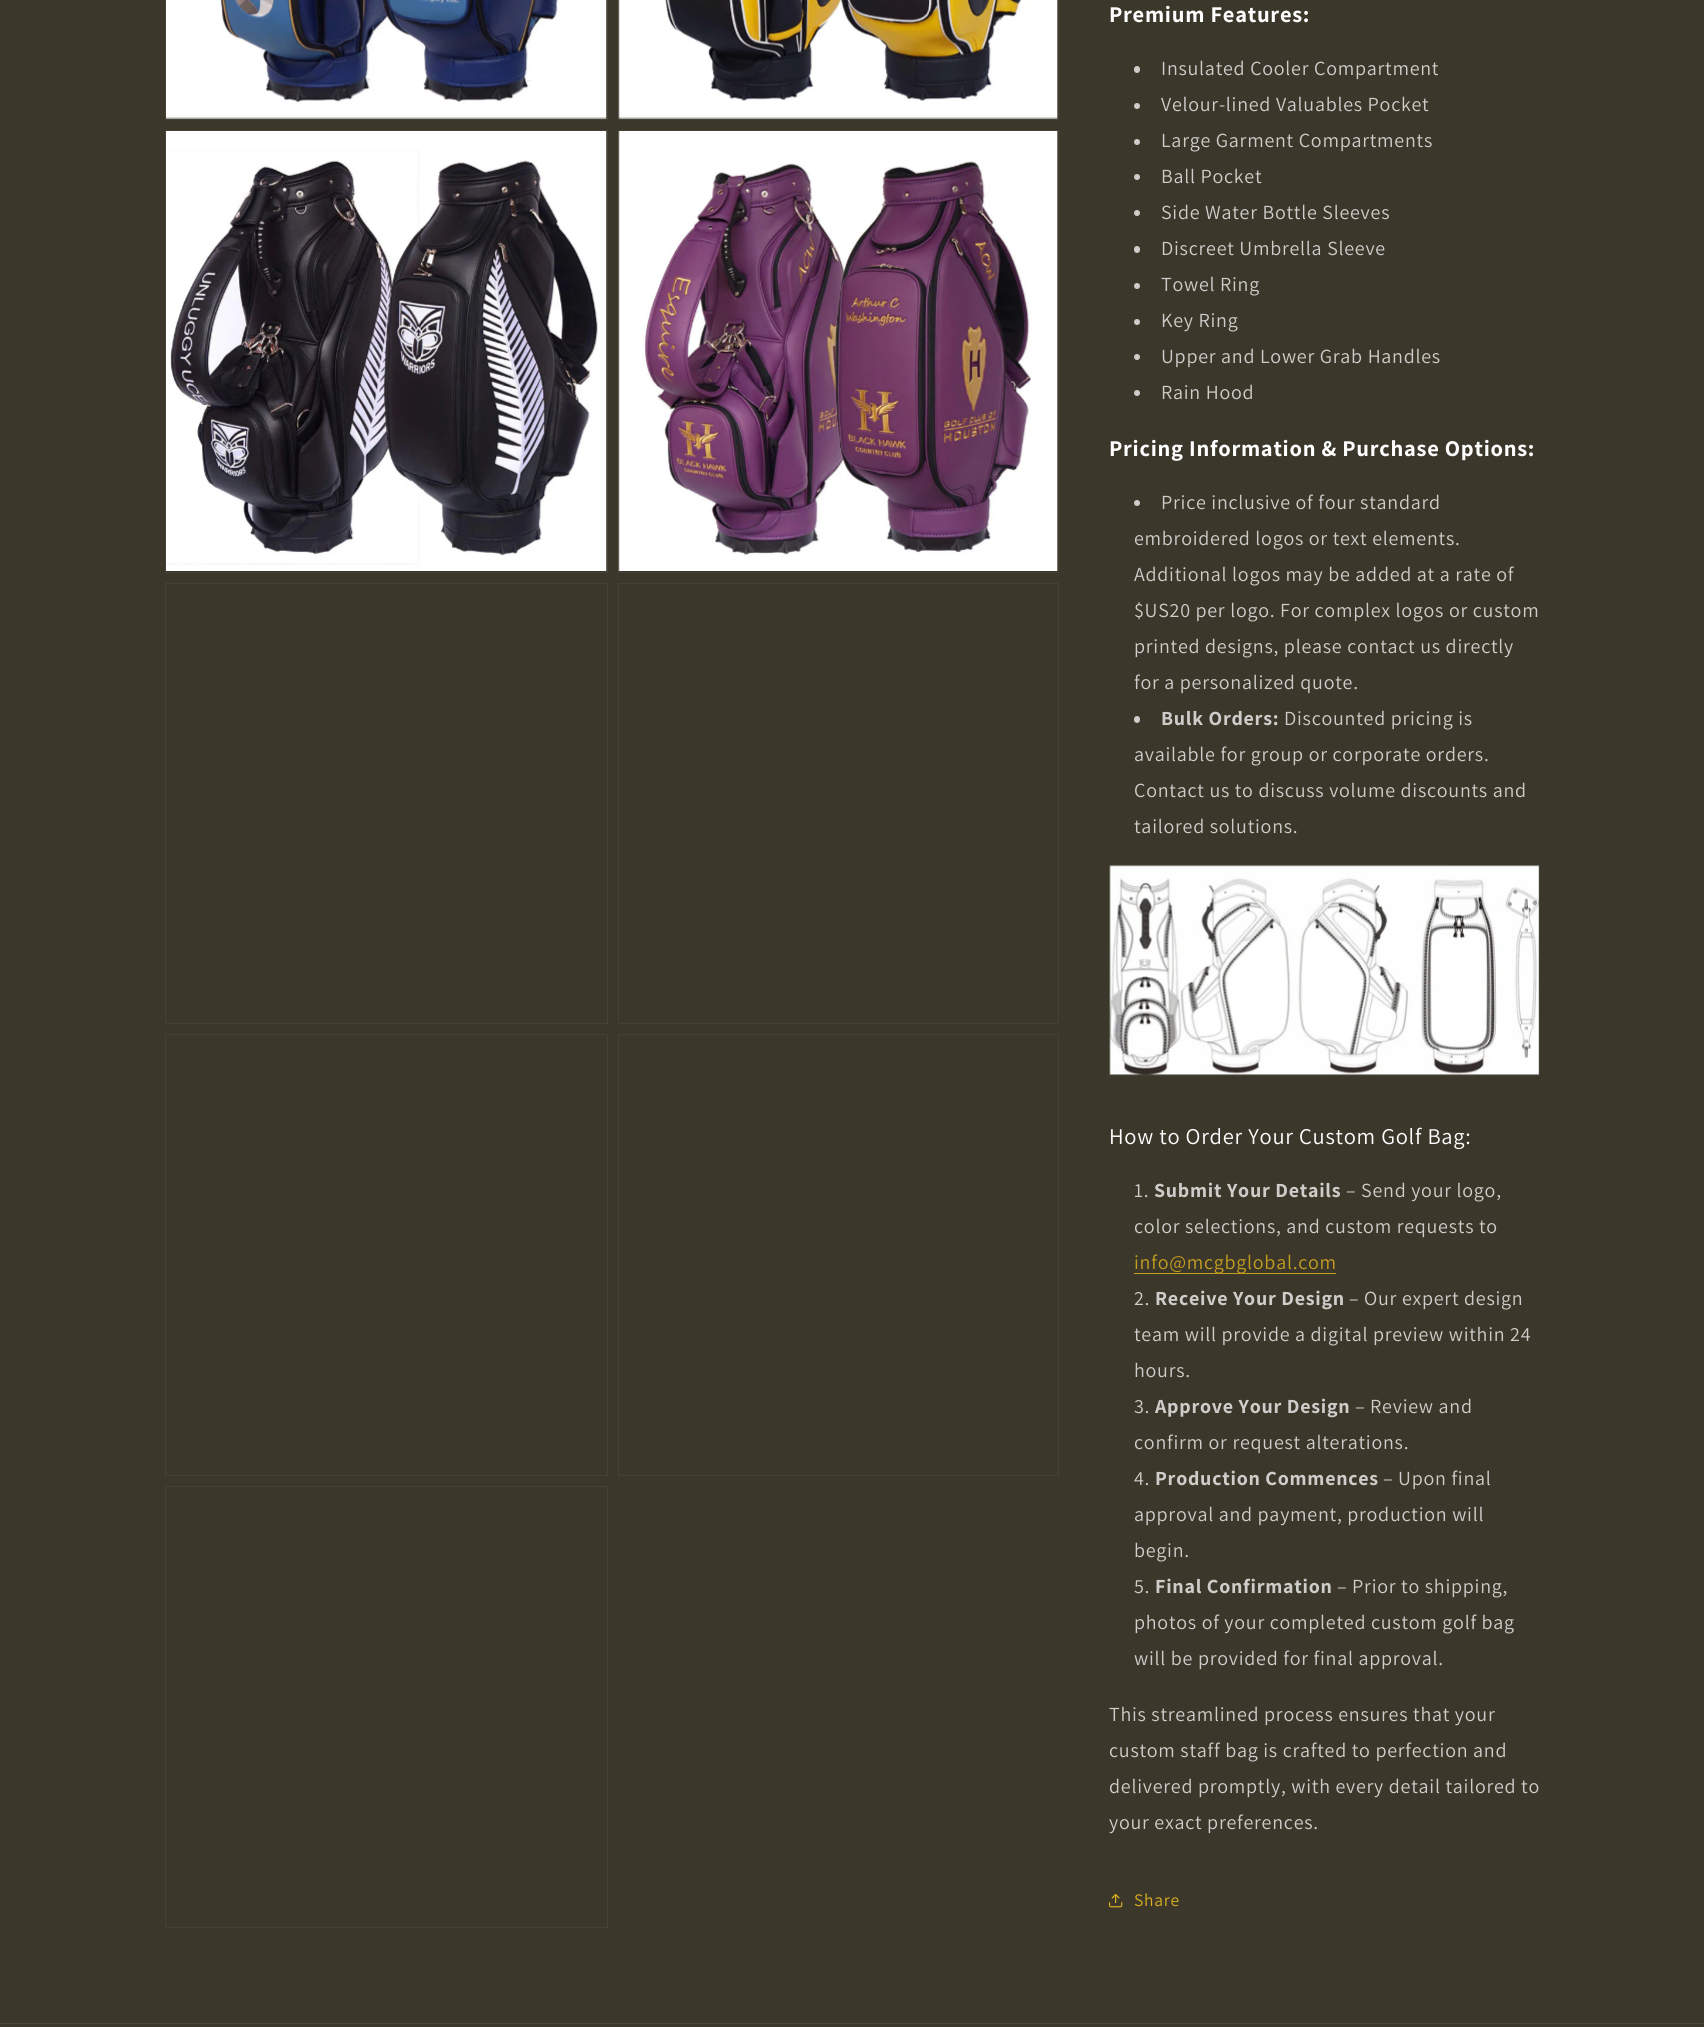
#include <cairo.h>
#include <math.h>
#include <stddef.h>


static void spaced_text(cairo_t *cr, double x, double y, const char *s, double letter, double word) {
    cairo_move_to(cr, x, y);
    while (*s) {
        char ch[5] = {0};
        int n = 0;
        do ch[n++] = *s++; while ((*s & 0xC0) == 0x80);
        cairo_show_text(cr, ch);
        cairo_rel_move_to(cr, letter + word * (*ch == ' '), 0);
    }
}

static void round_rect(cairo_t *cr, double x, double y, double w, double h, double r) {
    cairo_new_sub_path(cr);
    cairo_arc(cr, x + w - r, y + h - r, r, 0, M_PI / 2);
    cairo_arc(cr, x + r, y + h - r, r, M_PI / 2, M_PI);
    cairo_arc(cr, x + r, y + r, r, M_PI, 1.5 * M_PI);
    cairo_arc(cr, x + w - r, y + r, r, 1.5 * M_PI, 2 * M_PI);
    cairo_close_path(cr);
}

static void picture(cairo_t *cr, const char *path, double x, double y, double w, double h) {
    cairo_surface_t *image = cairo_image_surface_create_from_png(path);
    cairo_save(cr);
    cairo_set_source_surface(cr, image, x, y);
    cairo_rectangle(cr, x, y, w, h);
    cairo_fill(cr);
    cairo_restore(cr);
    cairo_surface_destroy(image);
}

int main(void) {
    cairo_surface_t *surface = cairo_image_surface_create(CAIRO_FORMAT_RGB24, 1704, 2027);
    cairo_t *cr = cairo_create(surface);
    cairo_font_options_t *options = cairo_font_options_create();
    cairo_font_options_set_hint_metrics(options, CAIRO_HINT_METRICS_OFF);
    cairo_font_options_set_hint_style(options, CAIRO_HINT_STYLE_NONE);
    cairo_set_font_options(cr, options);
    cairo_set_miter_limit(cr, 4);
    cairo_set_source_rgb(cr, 0.231, 0.216, 0.169);
    cairo_paint(cr);
    cairo_rectangle(cr, 165.5, -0.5, 442, 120);
    cairo_set_source_rgb(cr, 0.271, 0.255, 0.212);
    cairo_set_line_width(cr, 1);
    cairo_stroke(cr);
    picture(cr, "img1.png", 166, 0, 441, 119);
    cairo_rectangle(cr, 618.5, -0.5, 440, 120);
    cairo_stroke(cr);
    picture(cr, "img2.png", 618, 0, 440, 119);
    cairo_rectangle(cr, 165.5, 130.5, 442, 442);
    cairo_stroke(cr);
    picture(cr, "img3.png", 166, 131, 441, 440);
    cairo_rectangle(cr, 618.5, 130.5, 440, 442);
    cairo_stroke(cr);
    picture(cr, "img4.png", 618, 131, 440, 440);
    cairo_rectangle(cr, 165.5, 583.5, 442, 440);
    cairo_stroke(cr);
    cairo_rectangle(cr, 618.5, 583.5, 440, 440);
    cairo_stroke(cr);
    cairo_rectangle(cr, 165.5, 1034.5, 442, 441);
    cairo_stroke(cr);
    cairo_rectangle(cr, 618.5, 1034.5, 440, 441);
    cairo_stroke(cr);
    cairo_rectangle(cr, 165.5, 1486.5, 442, 441);
    cairo_stroke(cr);
    cairo_select_font_face(cr, "Assistant", CAIRO_FONT_SLANT_NORMAL, CAIRO_FONT_WEIGHT_BOLD);
    cairo_set_font_size(cr, 22.5);
    cairo_set_source_rgb(cr, 1, 1, 1);
    spaced_text(cr, 1109, 22, "Premium Features:", 0.75, 0);
    cairo_set_source_rgb(cr, 0.808, 0.804, 0.792);
    round_rect(cr, 1134, 66, 6, 7, 3);
    cairo_fill(cr);
    cairo_select_font_face(cr, "Assistant", CAIRO_FONT_SLANT_NORMAL, CAIRO_FONT_WEIGHT_NORMAL);
    cairo_set_font_size(cr, 20);
    spaced_text(cr, 1161, 75, "Insulated Cooler Compartment", 0.75, 0);
    cairo_new_path(cr);
    cairo_arc(cr, 1137, 106, 3, 0, 2 * M_PI);
    cairo_fill(cr);
    spaced_text(cr, 1161, 111, "Velour-lined Valuables Pocket", 0.75, 0);
    cairo_new_path(cr);
    cairo_arc(cr, 1137, 142, 3, 0, 2 * M_PI);
    cairo_fill(cr);
    spaced_text(cr, 1161, 147, "Large Garment Compartments", 0.75, 0);
    cairo_new_path(cr);
    cairo_arc(cr, 1137, 177, 3, 0, 2 * M_PI);
    cairo_fill(cr);
    spaced_text(cr, 1161, 183, "Ball Pocket", 0.75, 0);
    cairo_new_path(cr);
    cairo_arc(cr, 1137, 213, 3, 0, 2 * M_PI);
    cairo_fill(cr);
    spaced_text(cr, 1161, 219, "Side Water Bottle Sleeves", 0.75, 0);
    round_rect(cr, 1134, 246, 6, 7, 3);
    cairo_fill(cr);
    spaced_text(cr, 1161, 255, "Discreet Umbrella Sleeve", 0.75, 0);
    cairo_new_path(cr);
    cairo_arc(cr, 1137, 286, 3, 0, 2 * M_PI);
    cairo_fill(cr);
    spaced_text(cr, 1161, 291, "Towel Ring", 0.75, 0);
    cairo_new_path(cr);
    cairo_arc(cr, 1137, 322, 3, 0, 2 * M_PI);
    cairo_fill(cr);
    spaced_text(cr, 1161, 327, "Key Ring", 0.75, 0);
    cairo_new_path(cr);
    cairo_arc(cr, 1137, 357, 3, 0, 2 * M_PI);
    cairo_fill(cr);
    spaced_text(cr, 1161, 363, "Upper and Lower Grab Handles", 0.75, 0);
    cairo_new_path(cr);
    cairo_arc(cr, 1137, 393, 3, 0, 2 * M_PI);
    cairo_fill(cr);
    spaced_text(cr, 1161, 399, "Rain Hood", 0.75, 0);
    cairo_select_font_face(cr, "Assistant", CAIRO_FONT_SLANT_NORMAL, CAIRO_FONT_WEIGHT_BOLD);
    cairo_set_font_size(cr, 22.5);
    cairo_set_source_rgb(cr, 1, 1, 1);
    spaced_text(cr, 1109, 456, "Pricing Information & Purchase Options:", 0.75, 0);
    cairo_set_source_rgb(cr, 0.808, 0.804, 0.792);
    cairo_new_path(cr);
    cairo_arc(cr, 1137, 503, 3, 0, 2 * M_PI);
    cairo_fill(cr);
    cairo_select_font_face(cr, "Assistant", CAIRO_FONT_SLANT_NORMAL, CAIRO_FONT_WEIGHT_NORMAL);
    cairo_set_font_size(cr, 20);
    spaced_text(cr, 1161, 509, "Price inclusive of four standard", 0.75, 0);
    spaced_text(cr, 1134, 545, "embroidered logos or text elements.", 0.75, 0);
    spaced_text(cr, 1134, 581, "Additional logos may be added at a rate of", 0.75, 0);
    spaced_text(cr, 1134, 617, "$US20 per logo. For complex logos or custom", 0.75, 0);
    spaced_text(cr, 1134, 653, "printed designs, please contact us directly", 0.75, 0);
    spaced_text(cr, 1134, 689, "for a personalized quote.", 0.75, 0);
    round_rect(cr, 1134, 716, 6, 7, 3);
    cairo_fill(cr);
    cairo_select_font_face(cr, "Assistant", CAIRO_FONT_SLANT_NORMAL, CAIRO_FONT_WEIGHT_BOLD);
    spaced_text(cr, 1161, 725, "Bulk Orders:", 0.75, 0);
    cairo_select_font_face(cr, "Assistant", CAIRO_FONT_SLANT_NORMAL, CAIRO_FONT_WEIGHT_NORMAL);
    spaced_text(cr, 1284, 725, "Discounted pricing is", 0.75, 0);
    spaced_text(cr, 1134, 761, "available for group or corporate orders.", 0.75, 0);
    spaced_text(cr, 1134, 797, "Contact us to discuss volume discounts and", 0.75, 0);
    spaced_text(cr, 1134, 833, "tailored solutions.", 0.75, 0);
    cairo_rectangle(cr, 1109.5, 865.5, 430, 210);
    cairo_set_source_rgb(cr, 0.271, 0.255, 0.212);
    cairo_stroke(cr);
    picture(cr, "img5.png", 1109, 865, 430, 210);
    cairo_set_font_size(cr, 22.5);
    cairo_set_source_rgb(cr, 1, 1, 1);
    spaced_text(cr, 1109, 1144, "How to Order Your Custom Golf Bag:", 0.75, 0);
    cairo_set_font_size(cr, 20);
    cairo_set_source_rgb(cr, 0.808, 0.804, 0.792);
    spaced_text(cr, 1134, 1197, "1.", 0.75, 0);
    cairo_select_font_face(cr, "Assistant", CAIRO_FONT_SLANT_NORMAL, CAIRO_FONT_WEIGHT_BOLD);
    spaced_text(cr, 1154, 1197, "Submit Your Details", 0.75, 0);
    cairo_select_font_face(cr, "Assistant", CAIRO_FONT_SLANT_NORMAL, CAIRO_FONT_WEIGHT_NORMAL);
    spaced_text(cr, 1346, 1197, "– Send your logo,", 0.75, 0);
    spaced_text(cr, 1134, 1233, "color selections, and custom requests to", 0.75, 0);
    cairo_set_source_rgb(cr, 0.769, 0.616, 0.122);
    cairo_rectangle(cr, 1134, 1273, 202, 1);
    cairo_fill(cr);
    spaced_text(cr, 1134, 1269, "info@mcgbglobal.com", 0.75, 0);
    cairo_set_source_rgb(cr, 0.808, 0.804, 0.792);
    spaced_text(cr, 1134, 1305, "2.", 0.75, 0);
    cairo_select_font_face(cr, "Assistant", CAIRO_FONT_SLANT_NORMAL, CAIRO_FONT_WEIGHT_BOLD);
    spaced_text(cr, 1155, 1305, "Receive Your Design", 0.75, 0);
    cairo_select_font_face(cr, "Assistant", CAIRO_FONT_SLANT_NORMAL, CAIRO_FONT_WEIGHT_NORMAL);
    spaced_text(cr, 1349, 1305, "– Our expert design", 0.75, 0);
    spaced_text(cr, 1134, 1341, "team will provide a digital preview within 24", 0.75, 0);
    spaced_text(cr, 1134, 1377, "hours.", 0.75, 0);
    spaced_text(cr, 1134, 1413, "3.", 0.75, 0);
    cairo_select_font_face(cr, "Assistant", CAIRO_FONT_SLANT_NORMAL, CAIRO_FONT_WEIGHT_BOLD);
    spaced_text(cr, 1155, 1413, "Approve Your Design", 0.75, 0);
    cairo_select_font_face(cr, "Assistant", CAIRO_FONT_SLANT_NORMAL, CAIRO_FONT_WEIGHT_NORMAL);
    spaced_text(cr, 1355, 1413, "– Review and", 0.75, 0);
    spaced_text(cr, 1134, 1449, "confirm or request alterations.", 0.75, 0);
    spaced_text(cr, 1134, 1485, "4.", 0.75, 0);
    cairo_select_font_face(cr, "Assistant", CAIRO_FONT_SLANT_NORMAL, CAIRO_FONT_WEIGHT_BOLD);
    spaced_text(cr, 1155, 1485, "Production Commences", 0.75, 0);
    cairo_select_font_face(cr, "Assistant", CAIRO_FONT_SLANT_NORMAL, CAIRO_FONT_WEIGHT_NORMAL);
    spaced_text(cr, 1383, 1485, "– Upon final", 0.75, 0);
    spaced_text(cr, 1134, 1521, "approval and payment, production will", 0.75, 0);
    spaced_text(cr, 1134, 1557, "begin.", 0.75, 0);
    spaced_text(cr, 1134, 1593, "5.", 0.75, 0);
    cairo_select_font_face(cr, "Assistant", CAIRO_FONT_SLANT_NORMAL, CAIRO_FONT_WEIGHT_BOLD);
    spaced_text(cr, 1155, 1593, "Final Confirmation", 0.75, 0);
    cairo_select_font_face(cr, "Assistant", CAIRO_FONT_SLANT_NORMAL, CAIRO_FONT_WEIGHT_NORMAL);
    spaced_text(cr, 1337, 1593, "– Prior to shipping,", 0.75, 0);
    spaced_text(cr, 1134, 1629, "photos of your completed custom golf bag", 0.75, 0);
    spaced_text(cr, 1134, 1665, "will be provided for final approval.", 0.75, 0);
    spaced_text(cr, 1109, 1721, "This streamlined process ensures that your", 0.75, 0);
    spaced_text(cr, 1109, 1757, "custom staff bag is crafted to perfection and", 0.75, 0);
    spaced_text(cr, 1109, 1793, "delivered promptly, with every detail tailored to", 0.75, 0);
    spaced_text(cr, 1109, 1829, "your exact preferences.", 0.75, 0);
    picture(cr, "img6.png", 1108, 1893, 15, 15);
    cairo_set_font_size(cr, 17.5);
    cairo_set_source_rgb(cr, 0.863, 0.686, 0.114);
    spaced_text(cr, 1134, 1906, "Share", 0.75, 0);
    cairo_set_source_rgb(cr, 0.294, 0.278, 0.235);
    cairo_rectangle(cr, 0, 2023, 1704, 1);
    cairo_fill(cr);
    cairo_surface_write_to_png(surface, "page.png");
    cairo_font_options_destroy(options);
    cairo_destroy(cr);
    cairo_surface_destroy(surface);
    return 0;
}
